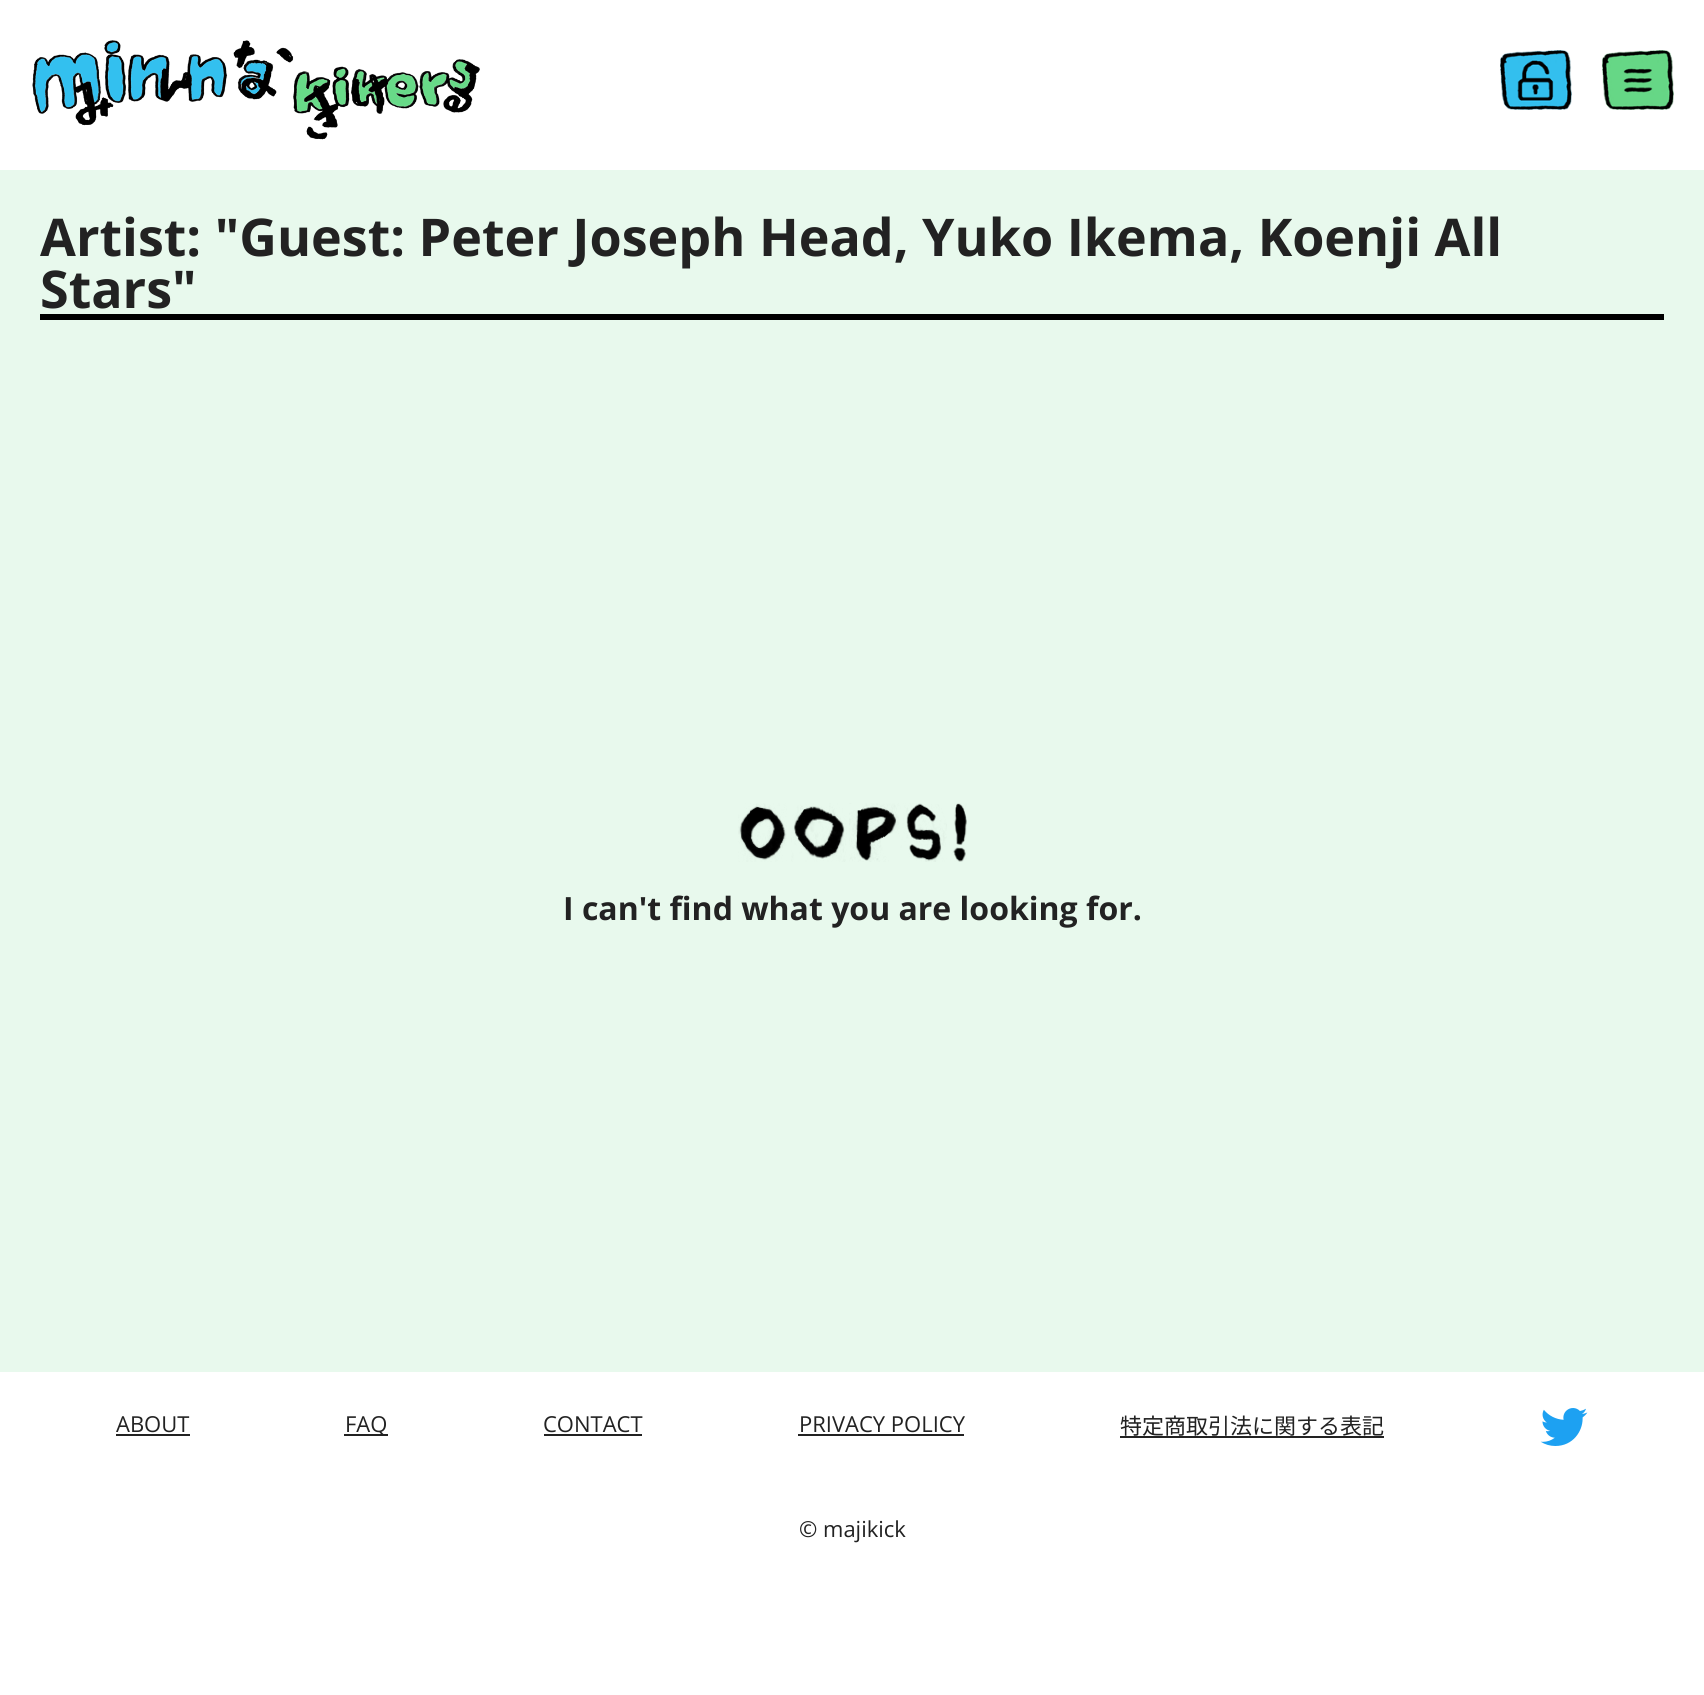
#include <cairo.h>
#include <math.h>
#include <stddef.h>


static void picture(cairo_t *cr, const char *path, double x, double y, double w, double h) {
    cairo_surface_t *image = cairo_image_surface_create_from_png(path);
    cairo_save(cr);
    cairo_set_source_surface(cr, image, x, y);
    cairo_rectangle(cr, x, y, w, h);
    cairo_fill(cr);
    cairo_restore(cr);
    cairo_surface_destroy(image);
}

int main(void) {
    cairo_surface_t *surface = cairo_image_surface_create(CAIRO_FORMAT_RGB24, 1704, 1695);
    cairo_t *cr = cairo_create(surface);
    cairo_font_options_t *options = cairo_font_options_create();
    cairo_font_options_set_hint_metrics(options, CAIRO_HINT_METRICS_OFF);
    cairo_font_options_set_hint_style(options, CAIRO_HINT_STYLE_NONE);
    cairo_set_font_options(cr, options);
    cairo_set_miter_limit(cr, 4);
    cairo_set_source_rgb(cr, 1, 1, 1);
    cairo_paint(cr);
    picture(cr, "img1.png", 32, 40, 448, 100);
    picture(cr, "img2.png", 1500, 50, 72, 60);
    picture(cr, "img3.png", 1602, 50, 72, 60);
    cairo_set_source_rgb(cr, 0.91, 0.976, 0.929);
    cairo_rectangle(cr, 0, 170, 1704, 1202);
    cairo_fill(cr);
    cairo_set_source_rgb(cr, 0, 0, 0);
    cairo_rectangle(cr, 40, 314, 1624, 6);
    cairo_fill(cr);
    cairo_select_font_face(cr, "Open Sans", CAIRO_FONT_SLANT_NORMAL, CAIRO_FONT_WEIGHT_BOLD);
    cairo_set_font_size(cr, 52);
    cairo_set_source_rgb(cr, 0.133, 0.133, 0.133);
    cairo_move_to(cr, 40, 256);
    cairo_show_text(cr, "Artist: \"Guest: Peter Joseph Head, Yuko Ikema, Koenji All");
    cairo_move_to(cr, 40, 308);
    cairo_show_text(cr, "Stars\"");
    picture(cr, "img4.png", 738, 803, 229, 59);
    cairo_set_font_size(cr, 32);
    cairo_move_to(cr, 563, 920);
    cairo_show_text(cr, "I can't find what you are looking for.");
    cairo_select_font_face(cr, "Open Sans", CAIRO_FONT_SLANT_NORMAL, CAIRO_FONT_WEIGHT_NORMAL);
    cairo_set_font_size(cr, 22);
    cairo_move_to(cr, 116, 1432);
    cairo_show_text(cr, "ABOUT");
    cairo_rectangle(cr, 116, 1434, 74, 2);
    cairo_fill(cr);
    cairo_rectangle(cr, 344, 1434, 44, 2);
    cairo_fill(cr);
    cairo_move_to(cr, 345, 1432);
    cairo_show_text(cr, "FAQ");
    cairo_move_to(cr, 543, 1432);
    cairo_show_text(cr, "CONTACT");
    cairo_rectangle(cr, 544, 1434, 98, 2);
    cairo_fill(cr);
    cairo_move_to(cr, 799, 1432);
    cairo_show_text(cr, "PRIVACY POLICY");
    cairo_rectangle(cr, 798, 1434, 166, 2);
    cairo_fill(cr);
    cairo_select_font_face(cr, "Noto Sans JP", CAIRO_FONT_SLANT_NORMAL, CAIRO_FONT_WEIGHT_NORMAL);
    cairo_move_to(cr, 1120, 1434);
    cairo_show_text(cr, "特定商取引法に関する表記");
    cairo_rectangle(cr, 1120, 1436, 264, 2);
    cairo_fill(cr);
    picture(cr, "img5.png", 1540, 1408, 48, 38);
    cairo_select_font_face(cr, "Open Sans", CAIRO_FONT_SLANT_NORMAL, CAIRO_FONT_WEIGHT_NORMAL);
    cairo_move_to(cr, 799, 1537);
    cairo_show_text(cr, "© majikick");
    cairo_surface_write_to_png(surface, "page.png");
    cairo_font_options_destroy(options);
    cairo_destroy(cr);
    cairo_surface_destroy(surface);
    return 0;
}
